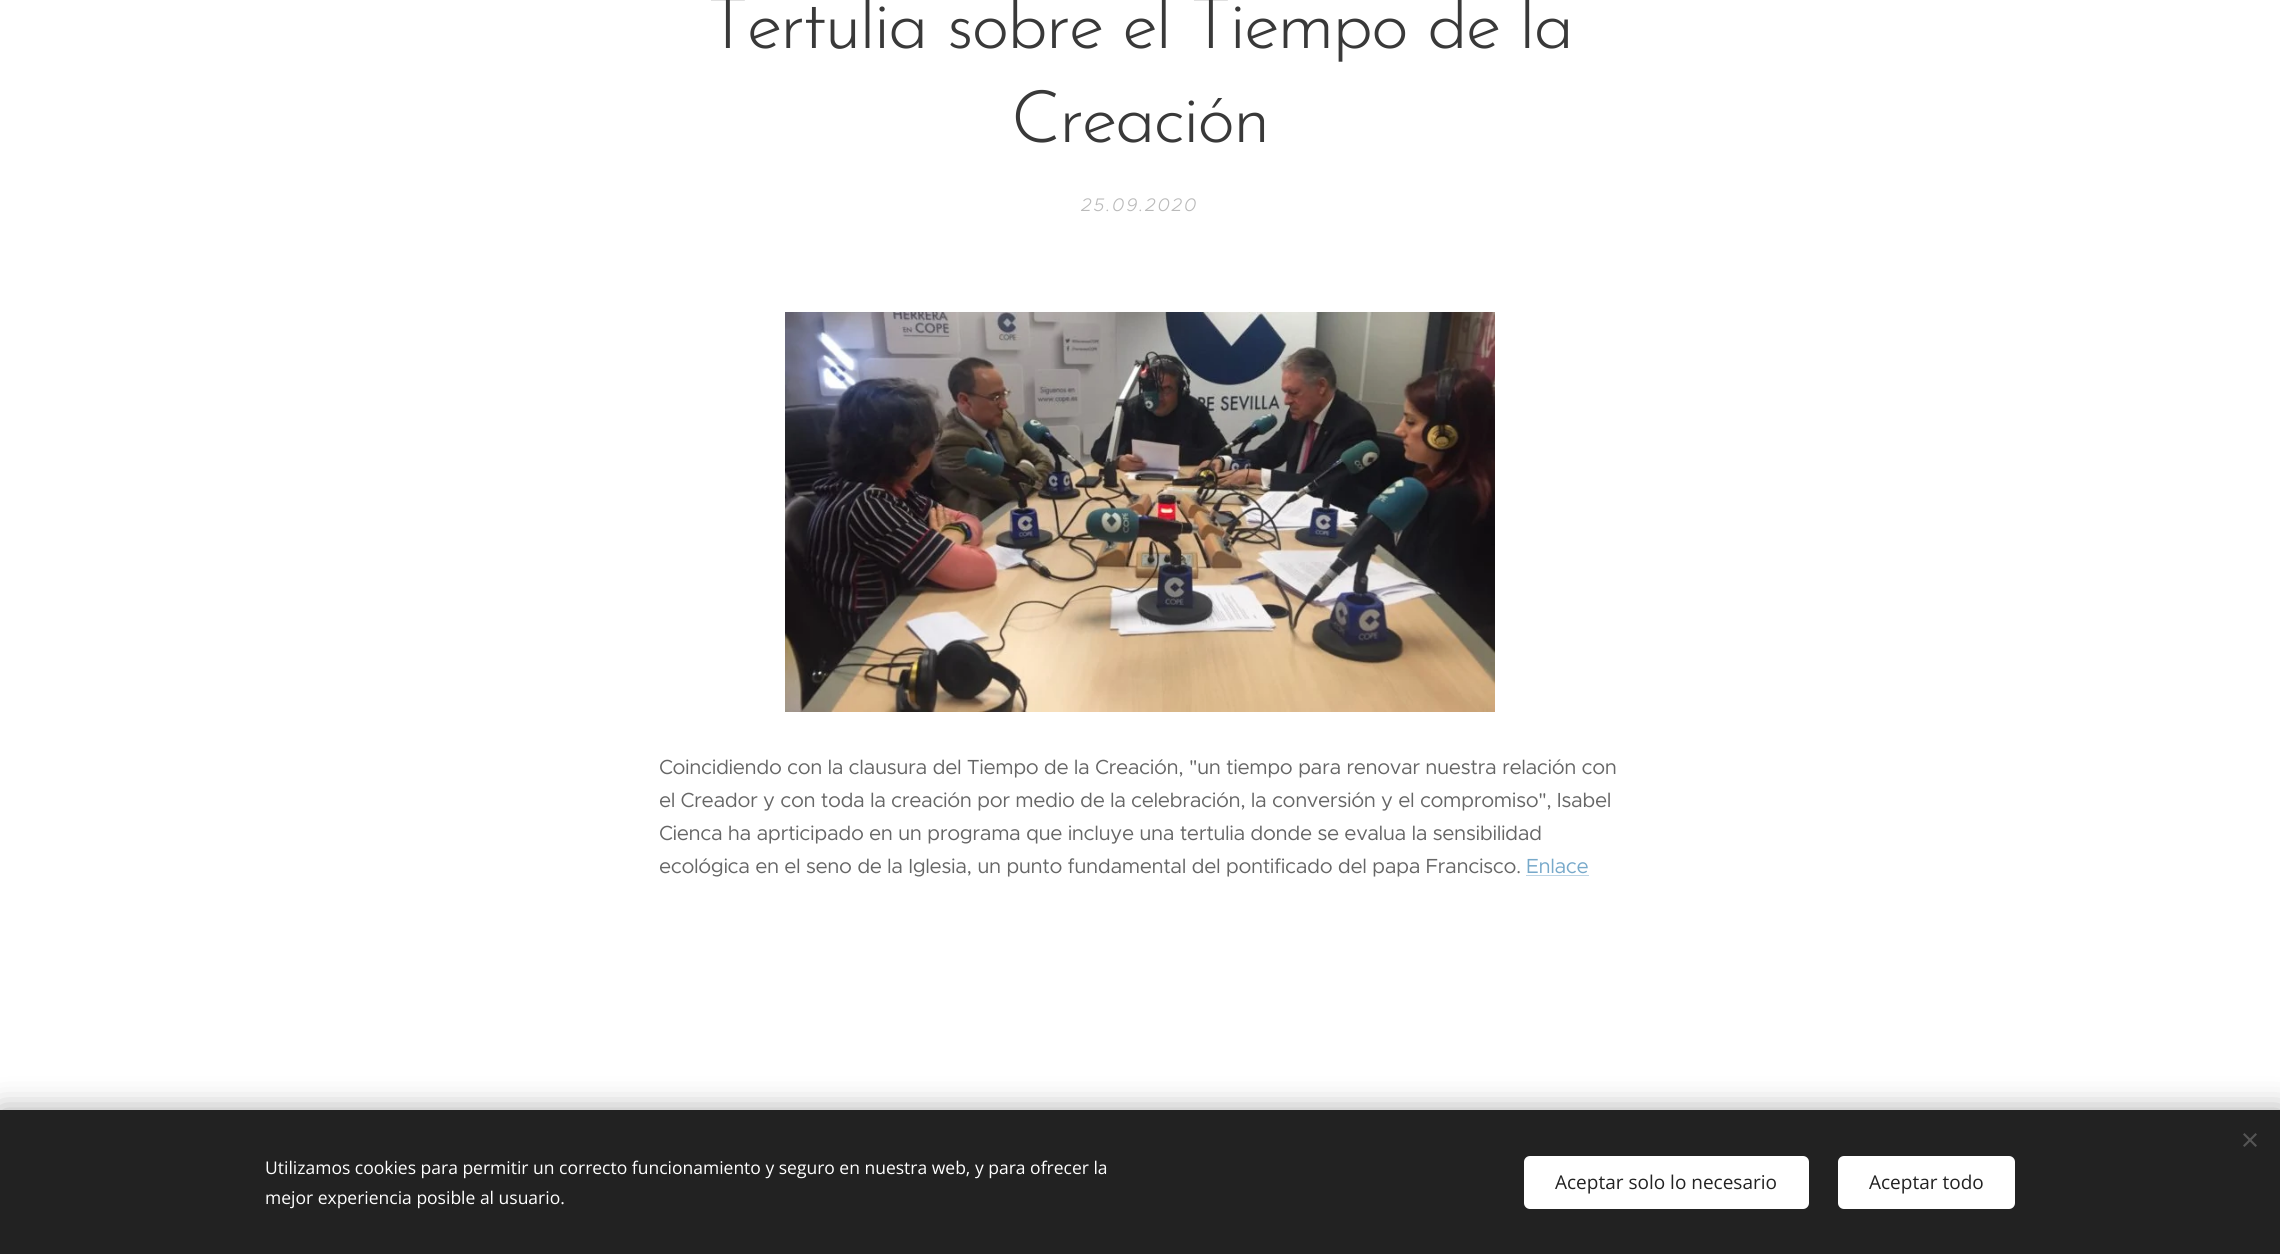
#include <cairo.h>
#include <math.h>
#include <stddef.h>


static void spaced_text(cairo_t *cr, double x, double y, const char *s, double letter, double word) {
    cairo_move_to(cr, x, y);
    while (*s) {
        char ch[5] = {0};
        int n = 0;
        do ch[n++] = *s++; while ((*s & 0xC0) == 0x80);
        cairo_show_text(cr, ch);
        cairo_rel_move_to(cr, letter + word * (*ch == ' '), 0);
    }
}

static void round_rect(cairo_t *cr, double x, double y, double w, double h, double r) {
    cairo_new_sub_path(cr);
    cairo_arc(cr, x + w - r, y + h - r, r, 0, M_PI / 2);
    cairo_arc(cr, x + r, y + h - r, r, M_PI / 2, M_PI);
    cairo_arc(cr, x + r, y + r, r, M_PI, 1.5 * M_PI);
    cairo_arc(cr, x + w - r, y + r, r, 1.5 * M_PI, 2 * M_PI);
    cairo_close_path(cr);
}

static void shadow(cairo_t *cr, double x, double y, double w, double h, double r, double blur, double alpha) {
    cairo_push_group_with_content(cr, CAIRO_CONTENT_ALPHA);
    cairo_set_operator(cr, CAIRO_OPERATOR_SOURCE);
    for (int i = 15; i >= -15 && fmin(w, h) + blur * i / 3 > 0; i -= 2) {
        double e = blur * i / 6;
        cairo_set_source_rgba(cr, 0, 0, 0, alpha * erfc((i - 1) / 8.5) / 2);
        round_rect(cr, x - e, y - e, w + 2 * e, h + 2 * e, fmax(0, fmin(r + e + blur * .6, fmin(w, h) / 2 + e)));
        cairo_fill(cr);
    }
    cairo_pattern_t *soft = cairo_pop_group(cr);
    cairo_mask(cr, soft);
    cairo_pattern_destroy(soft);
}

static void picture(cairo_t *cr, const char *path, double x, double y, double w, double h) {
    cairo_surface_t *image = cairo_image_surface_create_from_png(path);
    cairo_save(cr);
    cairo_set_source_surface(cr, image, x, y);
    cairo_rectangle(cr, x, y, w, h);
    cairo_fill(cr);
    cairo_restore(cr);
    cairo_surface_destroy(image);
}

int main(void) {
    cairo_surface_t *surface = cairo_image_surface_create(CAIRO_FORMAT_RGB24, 2280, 1254);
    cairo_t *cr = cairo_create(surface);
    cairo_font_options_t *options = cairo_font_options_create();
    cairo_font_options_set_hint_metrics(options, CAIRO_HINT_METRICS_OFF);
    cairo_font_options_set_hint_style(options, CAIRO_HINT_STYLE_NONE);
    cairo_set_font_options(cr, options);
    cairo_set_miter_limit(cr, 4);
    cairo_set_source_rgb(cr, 1, 1, 1);
    cairo_paint(cr);
    cairo_select_font_face(cr, "Josefin Sans Light", CAIRO_FONT_SLANT_NORMAL, CAIRO_FONT_WEIGHT_NORMAL);
    cairo_set_font_size(cr, 72.5);
    cairo_set_source_rgb(cr, 0.224, 0.224, 0.224);
    spaced_text(cr, 707, 48, "Tertulia sobre el Tiempo de la", -2.2, 0);
    spaced_text(cr, 1011, 142, "Creación", -2.2, 0);
    cairo_select_font_face(cr, "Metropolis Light", CAIRO_FONT_SLANT_ITALIC, CAIRO_FONT_WEIGHT_NORMAL);
    cairo_set_font_size(cr, 18.25);
    cairo_set_source_rgb(cr, 0.729, 0.729, 0.729);
    spaced_text(cr, 1081, 211, "25.09.2020", 1.75, 0);
    picture(cr, "img1.png", 785, 312, 710, 400);
    cairo_select_font_face(cr, "Metropolis", CAIRO_FONT_SLANT_NORMAL, CAIRO_FONT_WEIGHT_NORMAL);
    cairo_set_font_size(cr, 20.5);
    cairo_set_source_rgb(cr, 0.4, 0.4, 0.4);
    spaced_text(cr, 659, 774, "Coincidiendo con la clausura del Tiempo de la Creación,", -0.41, 0);
    spaced_text(cr, 1189, 774, "\"un tiempo para renovar nuestra relación con", -0.41, 0);
    spaced_text(cr, 659, 807, "el Creador y con toda la creación por medio de la celebración, la conversión y el compromiso\", Isabel", -0.41, 0);
    spaced_text(cr, 659, 840, "Cienca ha aprticipado en un programa que incluye una tertulia donde se evalua la sensibilidad", -0.41, 0);
    spaced_text(cr, 659, 873, "ecológica en el seno de la Iglesia, un punto fundamental del pontificado del papa Francisco.", -0.41, 0);
    cairo_set_source_rgb(cr, 0.467, 0.663, 0.792);
    spaced_text(cr, 1526, 873, "Enlace", -0.41, 0);
    cairo_set_source_rgb(cr, 0.733, 0.831, 0.898);
    cairo_rectangle(cr, 1526, 875, 63, 1);
    cairo_fill(cr);
    cairo_set_source_rgb(cr, 0, 0, 0);
    shadow(cr, 0, 1110, 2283, 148, 0, 15.5, 0.33);
    cairo_set_source_rgb(cr, 0.133, 0.133, 0.133);
    cairo_rectangle(cr, 0, 1110, 2280, 144);
    cairo_fill(cr);
    cairo_set_source_rgb(cr, 0.333, 0.333, 0.333);
    cairo_new_path(cr);
    cairo_move_to(cr, 2243, 1145.5);
    cairo_line_to(cr, 2255.5, 1133);
    cairo_line_to(cr, 2257, 1134.5);
    cairo_line_to(cr, 2244.5, 1147);
    cairo_close_path(cr);
    cairo_fill(cr);
    cairo_new_path(cr);
    cairo_move_to(cr, 2244.5, 1133);
    cairo_line_to(cr, 2257, 1145.5);
    cairo_line_to(cr, 2255.5, 1147);
    cairo_line_to(cr, 2243, 1134.5);
    cairo_close_path(cr);
    cairo_fill(cr);
    cairo_select_font_face(cr, "Open Sans", CAIRO_FONT_SLANT_NORMAL, CAIRO_FONT_WEIGHT_NORMAL);
    cairo_set_font_size(cr, 17.5);
    cairo_set_source_rgb(cr, 1, 1, 1);
    cairo_move_to(cr, 265, 1174);
    cairo_show_text(cr, "Utilizamos cookies para permitir un correcto funcionamiento y seguro en nuestra web, y para ofrecer la");
    cairo_move_to(cr, 265, 1204);
    cairo_show_text(cr, "mejor experiencia posible al usuario.");
    round_rect(cr, 1524, 1156, 285, 53, 6);
    cairo_fill(cr);
    cairo_set_font_size(cr, 19);
    cairo_set_source_rgb(cr, 0.133, 0.133, 0.133);
    cairo_move_to(cr, 1555, 1189);
    cairo_show_text(cr, "Aceptar solo lo necesario");
    cairo_set_source_rgb(cr, 1, 1, 1);
    round_rect(cr, 1838, 1156, 177, 53, 6);
    cairo_fill(cr);
    cairo_set_source_rgb(cr, 0.133, 0.133, 0.133);
    cairo_move_to(cr, 1869, 1189);
    cairo_show_text(cr, "Aceptar todo");
    cairo_surface_write_to_png(surface, "page.png");
    cairo_font_options_destroy(options);
    cairo_destroy(cr);
    cairo_surface_destroy(surface);
    return 0;
}
